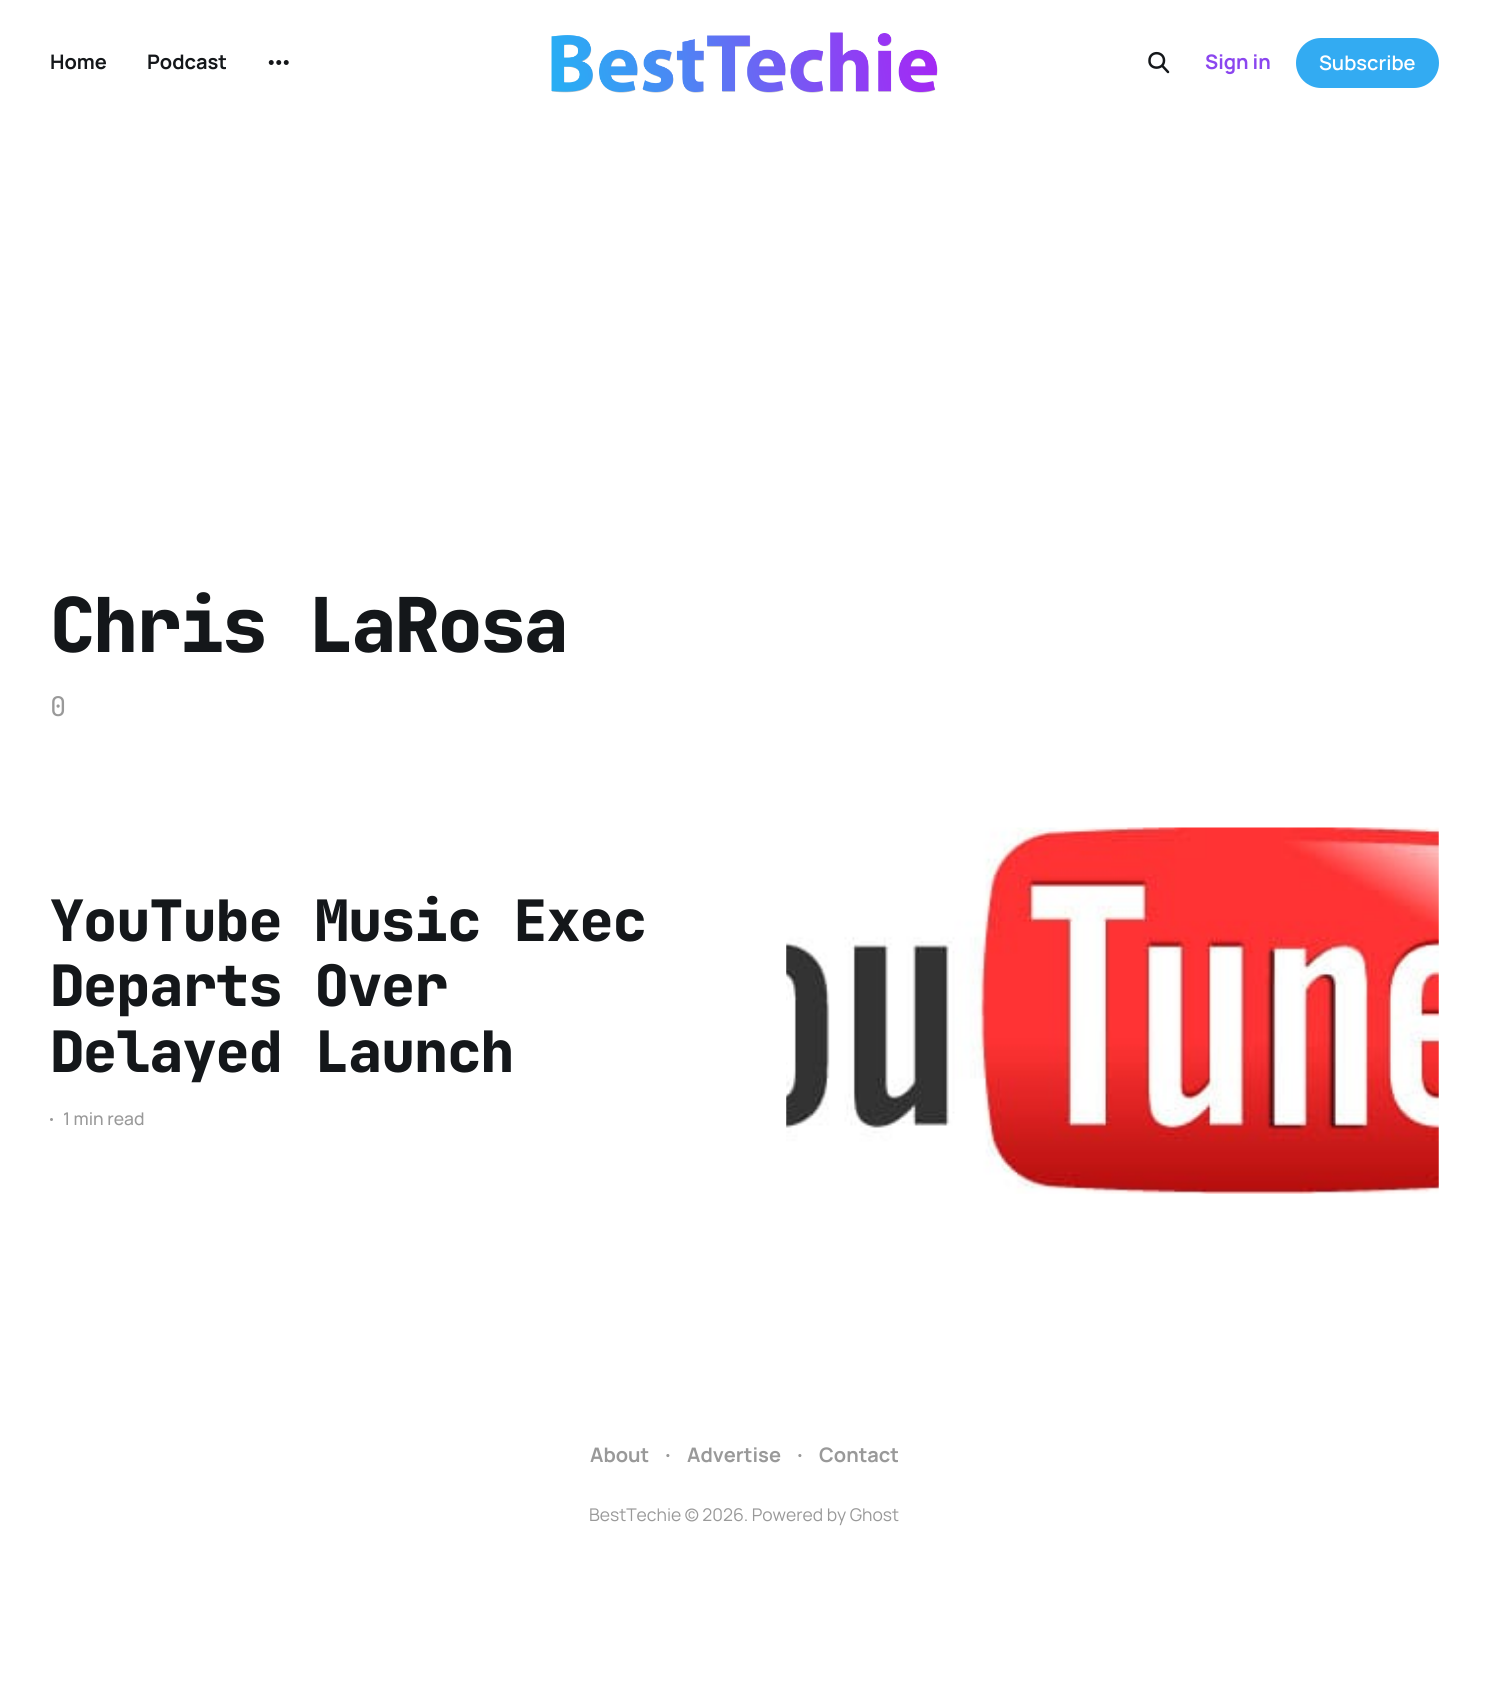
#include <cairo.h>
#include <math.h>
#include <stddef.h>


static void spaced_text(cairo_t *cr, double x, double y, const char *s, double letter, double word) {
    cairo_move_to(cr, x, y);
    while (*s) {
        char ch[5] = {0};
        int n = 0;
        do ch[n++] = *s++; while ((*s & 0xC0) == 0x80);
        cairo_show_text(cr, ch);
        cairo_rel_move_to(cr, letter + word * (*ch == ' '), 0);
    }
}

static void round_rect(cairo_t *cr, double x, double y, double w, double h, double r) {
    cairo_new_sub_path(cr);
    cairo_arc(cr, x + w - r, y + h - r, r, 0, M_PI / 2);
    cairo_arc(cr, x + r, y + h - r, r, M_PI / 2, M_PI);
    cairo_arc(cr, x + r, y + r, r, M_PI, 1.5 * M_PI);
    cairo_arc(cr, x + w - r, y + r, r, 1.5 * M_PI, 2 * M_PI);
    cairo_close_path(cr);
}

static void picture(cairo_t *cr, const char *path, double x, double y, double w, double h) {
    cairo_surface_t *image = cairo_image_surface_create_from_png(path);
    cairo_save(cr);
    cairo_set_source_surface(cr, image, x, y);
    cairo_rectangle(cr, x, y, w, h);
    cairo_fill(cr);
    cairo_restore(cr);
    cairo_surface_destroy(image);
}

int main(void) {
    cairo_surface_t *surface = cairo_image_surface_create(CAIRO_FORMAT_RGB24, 1488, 1682);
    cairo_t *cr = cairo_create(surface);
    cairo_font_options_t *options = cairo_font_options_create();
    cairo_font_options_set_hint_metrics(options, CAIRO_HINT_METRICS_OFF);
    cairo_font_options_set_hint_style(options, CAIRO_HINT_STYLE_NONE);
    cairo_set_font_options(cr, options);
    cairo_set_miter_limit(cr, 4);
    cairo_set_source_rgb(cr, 1, 1, 1);
    cairo_paint(cr);
    cairo_select_font_face(cr, "Manrope", CAIRO_FONT_SLANT_NORMAL, CAIRO_FONT_WEIGHT_BOLD);
    cairo_set_font_size(cr, 20);
    cairo_set_source_rgb(cr, 0.082, 0.09, 0.102);
    cairo_move_to(cr, 50, 69);
    cairo_show_text(cr, "Home");
    cairo_move_to(cr, 147, 69);
    cairo_show_text(cr, "Podcast");
    picture(cr, "img1.png", 268, 60, 21, 5);
    picture(cr, "img2.png", 551, 32, 387, 61);
    cairo_new_path(cr);
    cairo_move_to(cr, 1168, 72);
    cairo_line_to(cr, 1162, 65.5);
    cairo_close_path(cr);
    cairo_move_to(cr, 1164, 60.5);
    cairo_curve_to(cr, 1164, 70, 1149, 70, 1149.5, 60.5);
    cairo_curve_to(cr, 1149.5, 50.5, 1164, 51, 1164, 60.5);
    cairo_close_path(cr);
    cairo_set_line_width(cr, 2.5);
    cairo_set_line_cap(cr, CAIRO_LINE_CAP_ROUND);
    cairo_set_line_join(cr, CAIRO_LINE_JOIN_ROUND);
    cairo_stroke(cr);
    cairo_set_source_rgb(cr, 0.545, 0.275, 0.937);
    cairo_move_to(cr, 1205, 69);
    cairo_show_text(cr, "Sign in");
    cairo_set_source_rgb(cr, 0.2, 0.671, 0.949);
    round_rect(cr, 1296, 38, 143, 50, 25);
    cairo_fill(cr);
    cairo_select_font_face(cr, "Manrope SemiBold", CAIRO_FONT_SLANT_NORMAL, CAIRO_FONT_WEIGHT_NORMAL);
    cairo_set_source_rgb(cr, 1, 1, 1);
    cairo_move_to(cr, 1319, 70);
    cairo_show_text(cr, "Subscribe");
    cairo_select_font_face(cr, "JetBrains Mono ExtraBold", CAIRO_FONT_SLANT_NORMAL, CAIRO_FONT_WEIGHT_NORMAL);
    cairo_set_font_size(cr, 75.5);
    cairo_set_source_rgb(cr, 0.082, 0.09, 0.102);
    spaced_text(cr, 50, 652, "Chris LaRosa", -2.25, 0);
    cairo_select_font_face(cr, "JetBrains Mono", CAIRO_FONT_SLANT_NORMAL, CAIRO_FONT_WEIGHT_NORMAL);
    cairo_set_font_size(cr, 27);
    cairo_set_source_rgb(cr, 0.6, 0.6, 0.6);
    cairo_move_to(cr, 50, 716);
    cairo_show_text(cr, "0");
    cairo_select_font_face(cr, "JetBrains Mono ExtraBold", CAIRO_FONT_SLANT_NORMAL, CAIRO_FONT_WEIGHT_NORMAL);
    cairo_set_font_size(cr, 57);
    cairo_set_source_rgb(cr, 0.082, 0.09, 0.102);
    spaced_text(cr, 50, 941, "YouTube Music Exec", -1.1, 0);
    spaced_text(cr, 50, 1006, "Departs Over", -1.1, 0);
    spaced_text(cr, 50, 1072, "Delayed Launch", -1.1, 0);
    cairo_set_source_rgb(cr, 0.6, 0.6, 0.6);
    cairo_new_path(cr);
    cairo_arc(cr, 51.5, 1119.5, 1.5, 0, 2 * M_PI);
    cairo_fill(cr);
    cairo_select_font_face(cr, "Manrope Medium", CAIRO_FONT_SLANT_NORMAL, CAIRO_FONT_WEIGHT_NORMAL);
    cairo_set_font_size(cr, 17.5);
    cairo_move_to(cr, 63, 1125);
    cairo_show_text(cr, "1 min read");
    picture(cr, "img3.png", 786, 827, 653, 367);
    cairo_select_font_face(cr, "Manrope", CAIRO_FONT_SLANT_NORMAL, CAIRO_FONT_WEIGHT_BOLD);
    cairo_set_font_size(cr, 20);
    cairo_move_to(cr, 590, 1462);
    cairo_show_text(cr, "About");
    cairo_set_font_size(cr, 11);
    cairo_move_to(cr, 664, 1459);
    cairo_show_text(cr, "•");
    cairo_set_font_size(cr, 20);
    cairo_move_to(cr, 687, 1462);
    cairo_show_text(cr, "Advertise");
    cairo_set_font_size(cr, 11);
    cairo_move_to(cr, 796, 1459);
    cairo_show_text(cr, "•");
    cairo_set_font_size(cr, 20);
    cairo_move_to(cr, 819, 1462);
    cairo_show_text(cr, "Contact");
    cairo_select_font_face(cr, "Manrope", CAIRO_FONT_SLANT_NORMAL, CAIRO_FONT_WEIGHT_NORMAL);
    cairo_set_font_size(cr, 17.5);
    cairo_move_to(cr, 589, 1521);
    cairo_show_text(cr, "BestTechie © 2026. Powered by Ghost");
    cairo_surface_write_to_png(surface, "page.png");
    cairo_font_options_destroy(options);
    cairo_destroy(cr);
    cairo_surface_destroy(surface);
    return 0;
}
